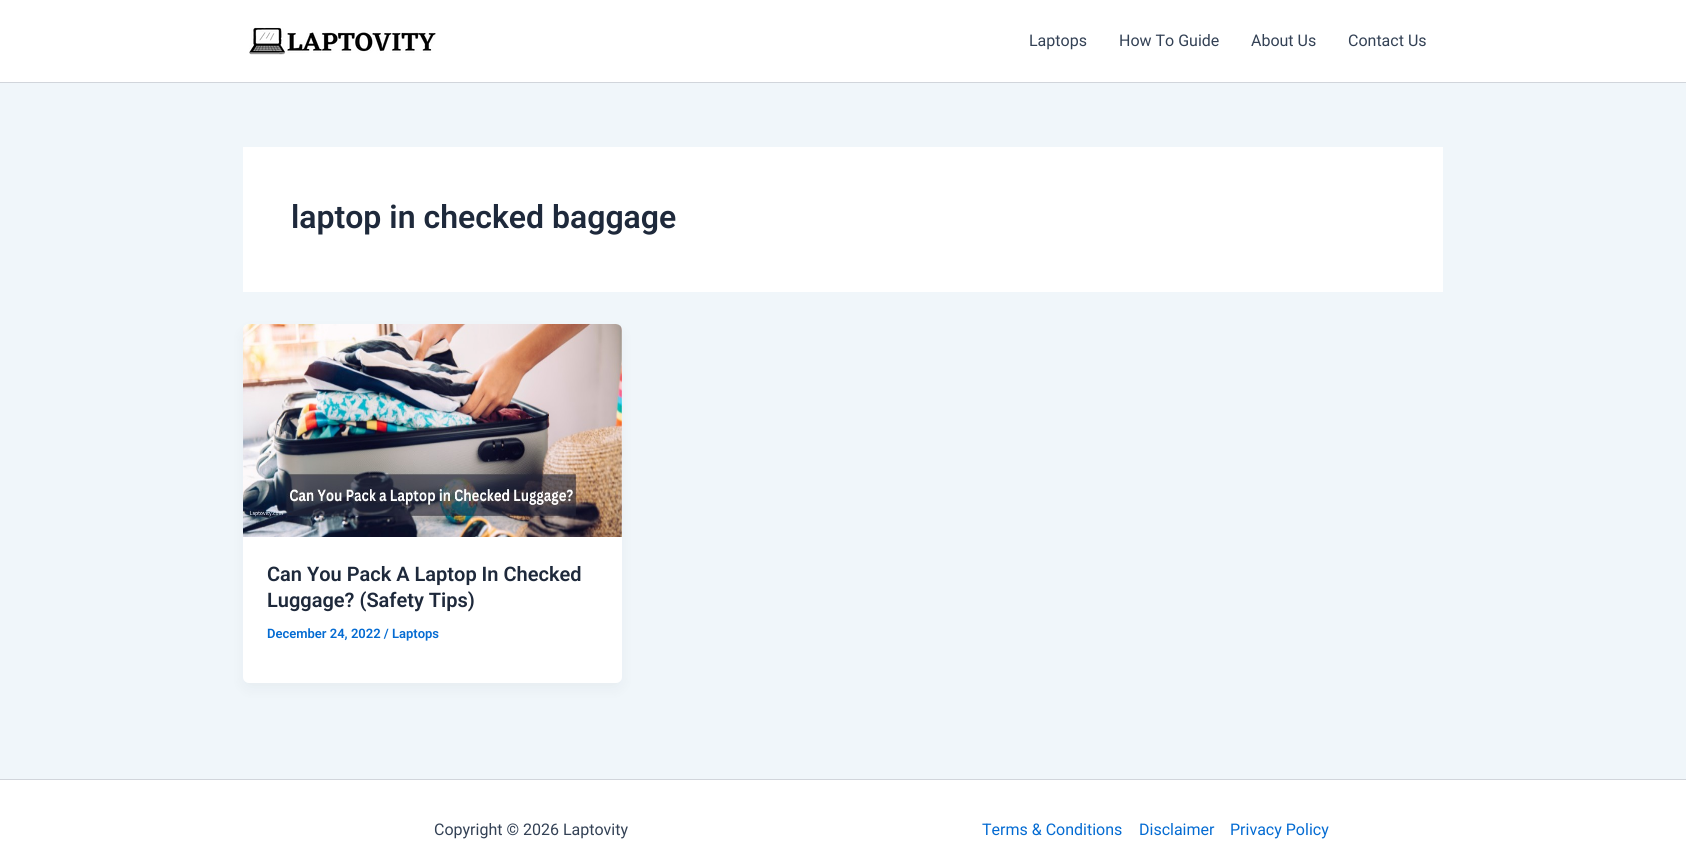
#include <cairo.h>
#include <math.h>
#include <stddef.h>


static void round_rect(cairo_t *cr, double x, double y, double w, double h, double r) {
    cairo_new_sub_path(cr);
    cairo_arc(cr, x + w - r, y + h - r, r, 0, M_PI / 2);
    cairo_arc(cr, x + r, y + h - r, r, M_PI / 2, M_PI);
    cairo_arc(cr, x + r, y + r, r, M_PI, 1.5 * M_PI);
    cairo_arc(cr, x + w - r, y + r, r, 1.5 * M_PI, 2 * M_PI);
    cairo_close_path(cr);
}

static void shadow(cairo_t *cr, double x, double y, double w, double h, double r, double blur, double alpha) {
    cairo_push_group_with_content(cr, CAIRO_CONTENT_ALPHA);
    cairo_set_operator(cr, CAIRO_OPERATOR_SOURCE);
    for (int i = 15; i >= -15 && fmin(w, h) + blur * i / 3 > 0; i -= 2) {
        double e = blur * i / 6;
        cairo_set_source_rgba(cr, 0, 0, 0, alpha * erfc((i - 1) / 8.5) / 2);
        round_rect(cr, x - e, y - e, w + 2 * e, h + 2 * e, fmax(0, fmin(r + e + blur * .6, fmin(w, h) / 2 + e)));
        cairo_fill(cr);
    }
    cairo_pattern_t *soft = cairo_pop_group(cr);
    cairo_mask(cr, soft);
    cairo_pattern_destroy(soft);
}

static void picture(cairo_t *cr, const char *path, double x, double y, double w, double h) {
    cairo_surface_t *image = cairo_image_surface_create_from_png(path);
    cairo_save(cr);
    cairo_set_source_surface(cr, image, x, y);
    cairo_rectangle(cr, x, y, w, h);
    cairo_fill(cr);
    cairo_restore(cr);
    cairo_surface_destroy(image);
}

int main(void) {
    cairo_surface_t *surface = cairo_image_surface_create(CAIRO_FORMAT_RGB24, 1686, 868);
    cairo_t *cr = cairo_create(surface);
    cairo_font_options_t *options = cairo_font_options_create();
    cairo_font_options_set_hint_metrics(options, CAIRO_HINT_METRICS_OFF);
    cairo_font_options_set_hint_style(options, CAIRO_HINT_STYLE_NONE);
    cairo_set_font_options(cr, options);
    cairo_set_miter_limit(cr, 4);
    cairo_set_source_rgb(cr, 0.941, 0.961, 0.98);
    cairo_paint(cr);
    cairo_set_source_rgb(cr, 1, 1, 1);
    cairo_rectangle(cr, 0, 0, 1686, 82);
    cairo_fill(cr);
    cairo_set_source_rgb(cr, 0.82, 0.835, 0.859);
    cairo_rectangle(cr, 0, 82, 1686, 1);
    cairo_fill(cr);
    picture(cr, "img1.png", 249, 27, 187, 28);
    cairo_select_font_face(cr, "Roboto", CAIRO_FONT_SLANT_NORMAL, CAIRO_FONT_WEIGHT_NORMAL);
    cairo_set_font_size(cr, 16);
    cairo_set_source_rgb(cr, 0.2, 0.255, 0.333);
    cairo_move_to(cr, 1029, 46);
    cairo_show_text(cr, "Laptops");
    cairo_move_to(cr, 1119, 46);
    cairo_show_text(cr, "How To Guide");
    cairo_move_to(cr, 1251, 46);
    cairo_show_text(cr, "About Us");
    cairo_move_to(cr, 1348, 46);
    cairo_show_text(cr, "Contact Us");
    cairo_set_source_rgb(cr, 1, 1, 1);
    cairo_rectangle(cr, 243, 147, 1200, 145);
    cairo_fill(cr);
    cairo_select_font_face(cr, "Roboto SemiBold", CAIRO_FONT_SLANT_NORMAL, CAIRO_FONT_WEIGHT_NORMAL);
    cairo_set_font_size(cr, 32);
    cairo_set_source_rgb(cr, 0.118, 0.161, 0.231);
    cairo_move_to(cr, 291, 228);
    cairo_show_text(cr, "laptop in checked baggage");
    cairo_set_source_rgb(cr, 0.063, 0.094, 0.157);
    shadow(cr, 245, 332, 375, 355, 4, 7.5, 0.05);
    cairo_set_source_rgb(cr, 1, 1, 1);
    round_rect(cr, 243, 324, 379, 359, 6);
    cairo_fill(cr);
    picture(cr, "img2.png", 243, 324, 379, 213);
    cairo_set_font_size(cr, 20);
    cairo_set_source_rgb(cr, 0.118, 0.161, 0.231);
    cairo_move_to(cr, 267, 581);
    cairo_show_text(cr, "Can You Pack A Laptop In Checked");
    cairo_move_to(cr, 267, 607);
    cairo_show_text(cr, "Luggage? (Safety Tips)");
    cairo_set_font_size(cr, 13);
    cairo_set_source_rgb(cr, 0.016, 0.42, 0.824);
    cairo_move_to(cr, 267, 638);
    cairo_show_text(cr, "December 24, 2022 / Laptops");
    cairo_set_source_rgb(cr, 1, 1, 1);
    cairo_rectangle(cr, 0, 780, 1686, 88);
    cairo_fill(cr);
    cairo_set_source_rgb(cr, 0.82, 0.835, 0.859);
    cairo_rectangle(cr, 0, 779, 1686, 1);
    cairo_fill(cr);
    cairo_select_font_face(cr, "Roboto", CAIRO_FONT_SLANT_NORMAL, CAIRO_FONT_WEIGHT_NORMAL);
    cairo_set_font_size(cr, 16);
    cairo_set_source_rgb(cr, 0.2, 0.255, 0.333);
    cairo_move_to(cr, 434, 835);
    cairo_show_text(cr, "Copyright © 2026 Laptovity");
    cairo_set_source_rgb(cr, 0.016, 0.42, 0.824);
    cairo_move_to(cr, 982, 835);
    cairo_show_text(cr, "Terms & Conditions");
    cairo_move_to(cr, 1139, 835);
    cairo_show_text(cr, "Disclaimer");
    cairo_move_to(cr, 1230, 835);
    cairo_show_text(cr, "Privacy Policy");
    cairo_surface_write_to_png(surface, "page.png");
    cairo_font_options_destroy(options);
    cairo_destroy(cr);
    cairo_surface_destroy(surface);
    return 0;
}
